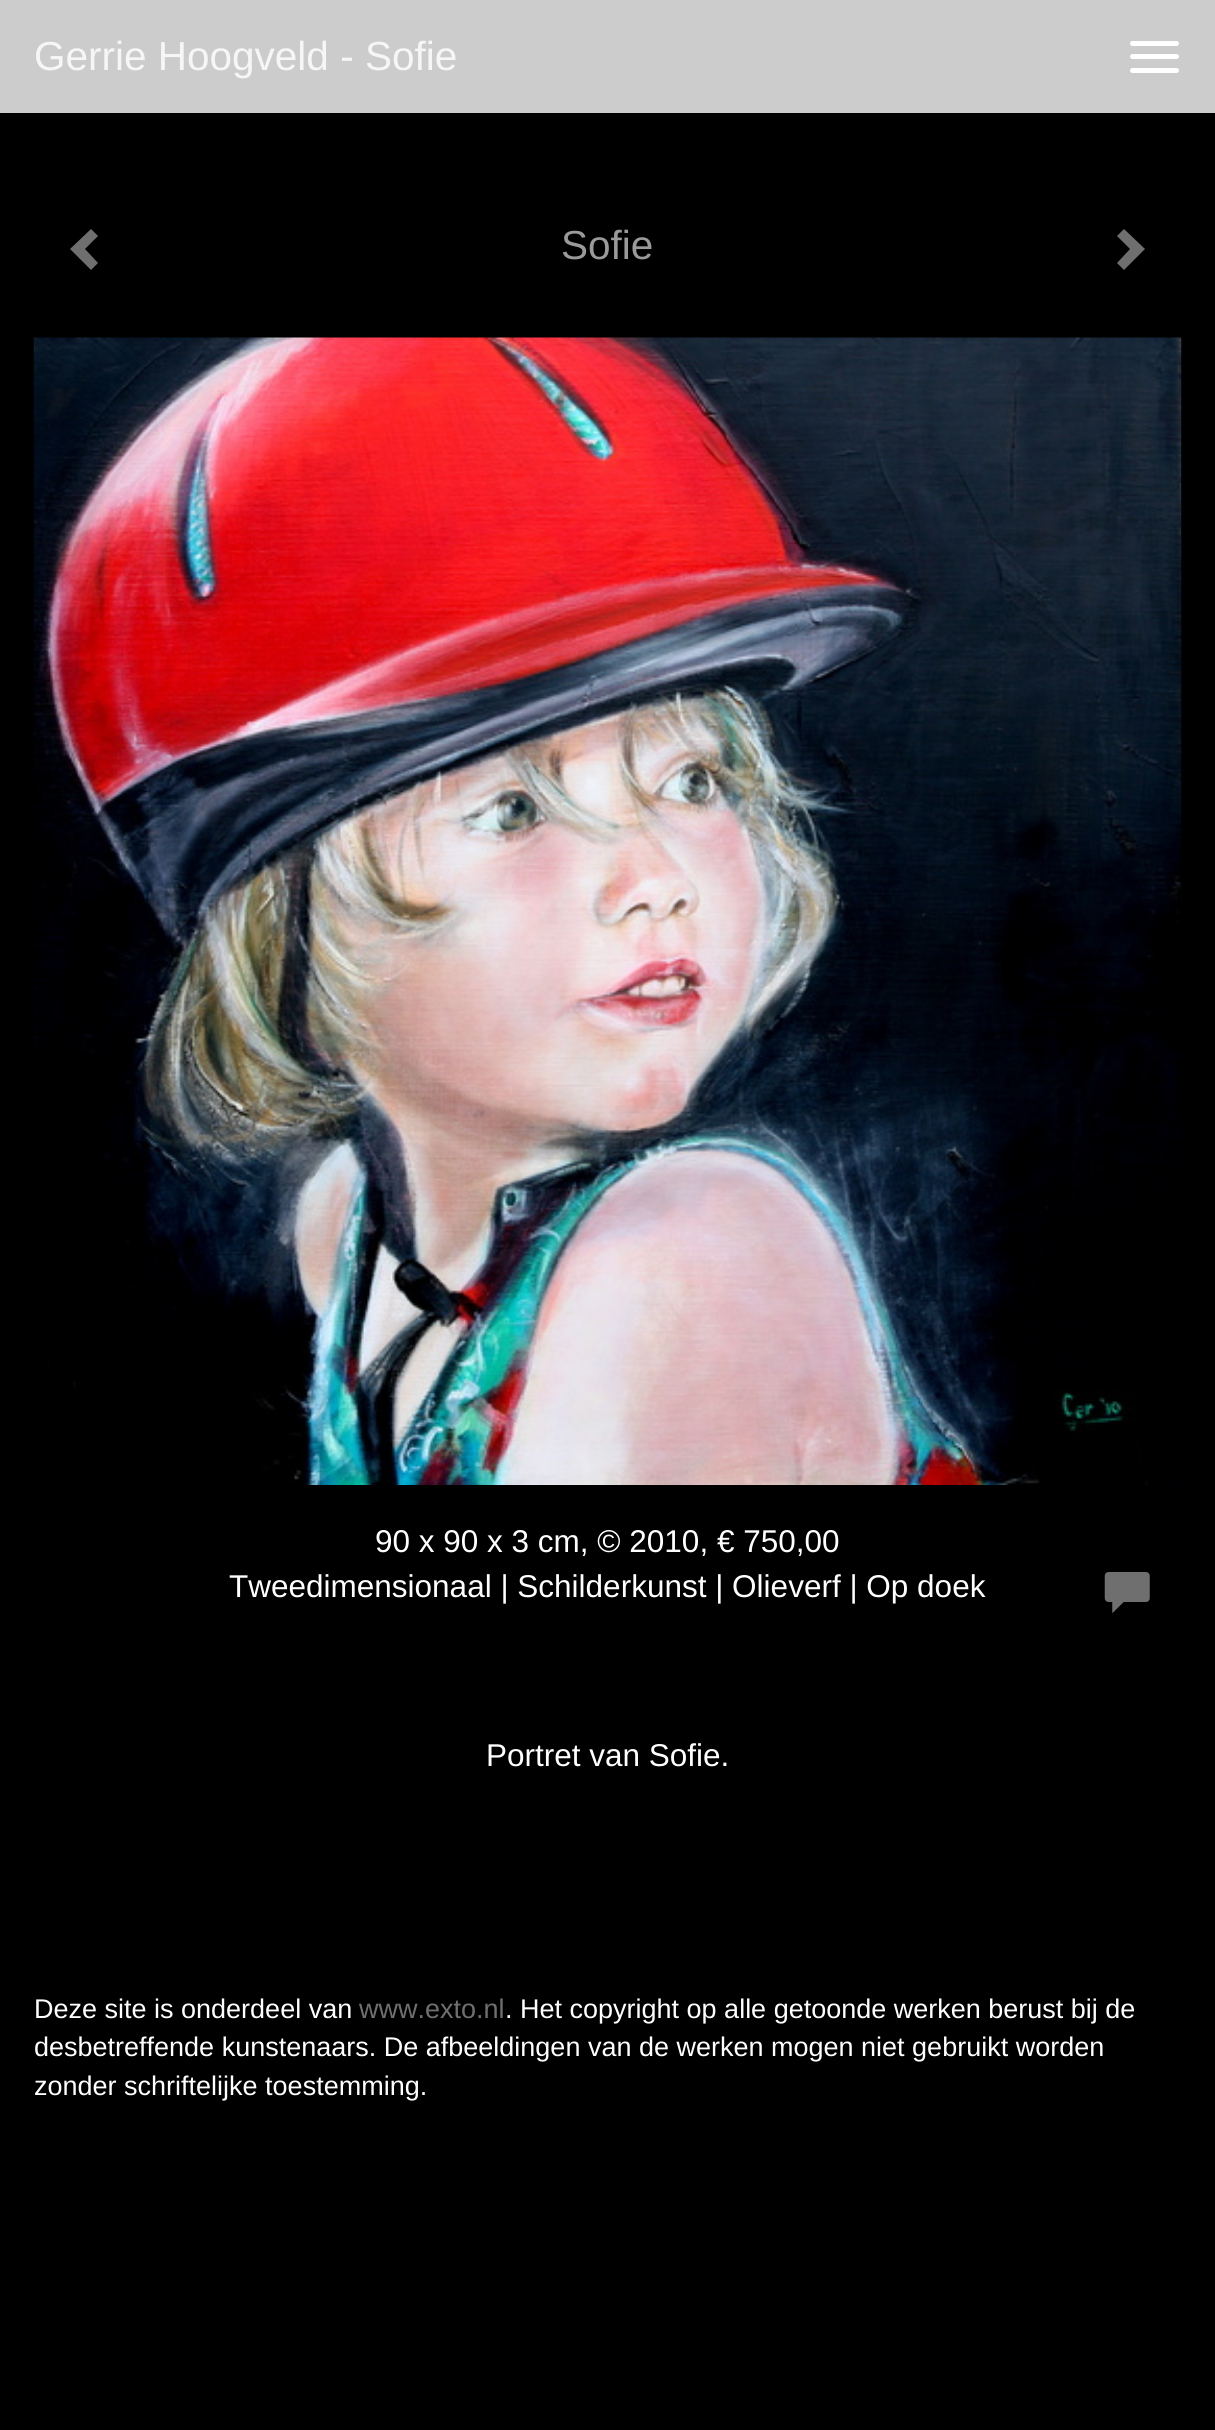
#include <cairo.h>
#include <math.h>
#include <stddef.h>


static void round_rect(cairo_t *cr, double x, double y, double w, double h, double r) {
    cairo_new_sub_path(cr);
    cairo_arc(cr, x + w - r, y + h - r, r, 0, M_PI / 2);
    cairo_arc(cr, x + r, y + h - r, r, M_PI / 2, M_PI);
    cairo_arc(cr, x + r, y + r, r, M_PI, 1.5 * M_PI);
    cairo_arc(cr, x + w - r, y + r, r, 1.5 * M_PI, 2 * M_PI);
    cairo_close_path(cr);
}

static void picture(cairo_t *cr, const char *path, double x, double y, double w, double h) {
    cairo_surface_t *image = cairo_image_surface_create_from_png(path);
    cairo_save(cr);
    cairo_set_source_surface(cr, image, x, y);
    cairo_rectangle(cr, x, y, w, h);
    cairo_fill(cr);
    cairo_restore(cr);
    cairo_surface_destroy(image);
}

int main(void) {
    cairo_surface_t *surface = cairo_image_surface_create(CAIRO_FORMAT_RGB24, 1215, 2430);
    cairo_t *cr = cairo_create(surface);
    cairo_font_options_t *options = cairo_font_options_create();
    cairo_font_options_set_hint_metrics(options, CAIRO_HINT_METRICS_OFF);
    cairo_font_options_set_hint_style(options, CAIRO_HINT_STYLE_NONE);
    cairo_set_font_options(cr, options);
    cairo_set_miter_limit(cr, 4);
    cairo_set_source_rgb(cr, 0, 0, 0);
    cairo_paint(cr);
    cairo_set_source_rgb(cr, 0.8, 0.8, 0.8);
    cairo_rectangle(cr, 0, 0, 1215, 113);
    cairo_fill(cr);
    cairo_select_font_face(cr, "Liberation Sans", CAIRO_FONT_SLANT_NORMAL, CAIRO_FONT_WEIGHT_NORMAL);
    cairo_set_font_size(cr, 40.5);
    cairo_set_source_rgb(cr, 0.961, 0.961, 0.961);
    cairo_move_to(cr, 34, 70);
    cairo_show_text(cr, "Gerrie Hoogveld - Sofie");
    cairo_set_source_rgb(cr, 1, 1, 1);
    round_rect(cr, 1130, 41, 49, 5, 2.5);
    cairo_fill(cr);
    round_rect(cr, 1130, 54, 49, 5, 2.5);
    cairo_fill(cr);
    round_rect(cr, 1130, 68, 49, 5, 2.5);
    cairo_fill(cr);
    cairo_set_source_rgb(cr, 0.435, 0.435, 0.435);
    cairo_new_path(cr);
    cairo_move_to(cr, 98, 236);
    cairo_line_to(cr, 85, 249);
    cairo_line_to(cr, 98, 263);
    cairo_line_to(cr, 91, 270);
    cairo_line_to(cr, 70, 249);
    cairo_line_to(cr, 91, 229);
    cairo_close_path(cr);
    cairo_fill(cr);
    cairo_set_source_rgb(cr, 0.604, 0.604, 0.604);
    cairo_move_to(cr, 561, 259);
    cairo_show_text(cr, "Sofie");
    cairo_set_source_rgb(cr, 0.435, 0.435, 0.435);
    cairo_new_path(cr);
    cairo_move_to(cr, 1145, 249);
    cairo_line_to(cr, 1124, 270);
    cairo_line_to(cr, 1117, 263);
    cairo_line_to(cr, 1130, 249);
    cairo_line_to(cr, 1117, 236);
    cairo_line_to(cr, 1124, 229);
    cairo_close_path(cr);
    cairo_fill(cr);
    picture(cr, "img1.png", 33, 337, 1149, 1148);
    cairo_set_font_size(cr, 31.5);
    cairo_set_source_rgb(cr, 1, 1, 1);
    cairo_move_to(cr, 375, 1552);
    cairo_show_text(cr, "90 x 90 x 3 cm, © 2010, € 750,00");
    cairo_move_to(cr, 229, 1597);
    cairo_show_text(cr, "Tweedimensionaal | Schilderkunst | Olieverf | Op doek");
    picture(cr, "img2.png", 1104, 1572, 46, 41);
    cairo_move_to(cr, 486, 1766);
    cairo_show_text(cr, "Portret van Sofie.");
    cairo_set_font_size(cr, 27);
    cairo_move_to(cr, 34, 2018);
    cairo_show_text(cr, "Deze site is onderdeel van");
    cairo_set_source_rgb(cr, 0.435, 0.435, 0.435);
    cairo_move_to(cr, 359, 2018);
    cairo_show_text(cr, "www.exto.nl");
    cairo_set_source_rgb(cr, 1, 1, 1);
    cairo_move_to(cr, 505, 2018);
    cairo_show_text(cr, ". Het copyright op alle getoonde werken berust bij de");
    cairo_move_to(cr, 34, 2056);
    cairo_show_text(cr, "desbetreffende kunstenaars. De afbeeldingen van de werken mogen niet gebruikt worden");
    cairo_move_to(cr, 34, 2095);
    cairo_show_text(cr, "zonder schriftelijke toestemming.");
    cairo_surface_write_to_png(surface, "page.png");
    cairo_font_options_destroy(options);
    cairo_destroy(cr);
    cairo_surface_destroy(surface);
    return 0;
}
